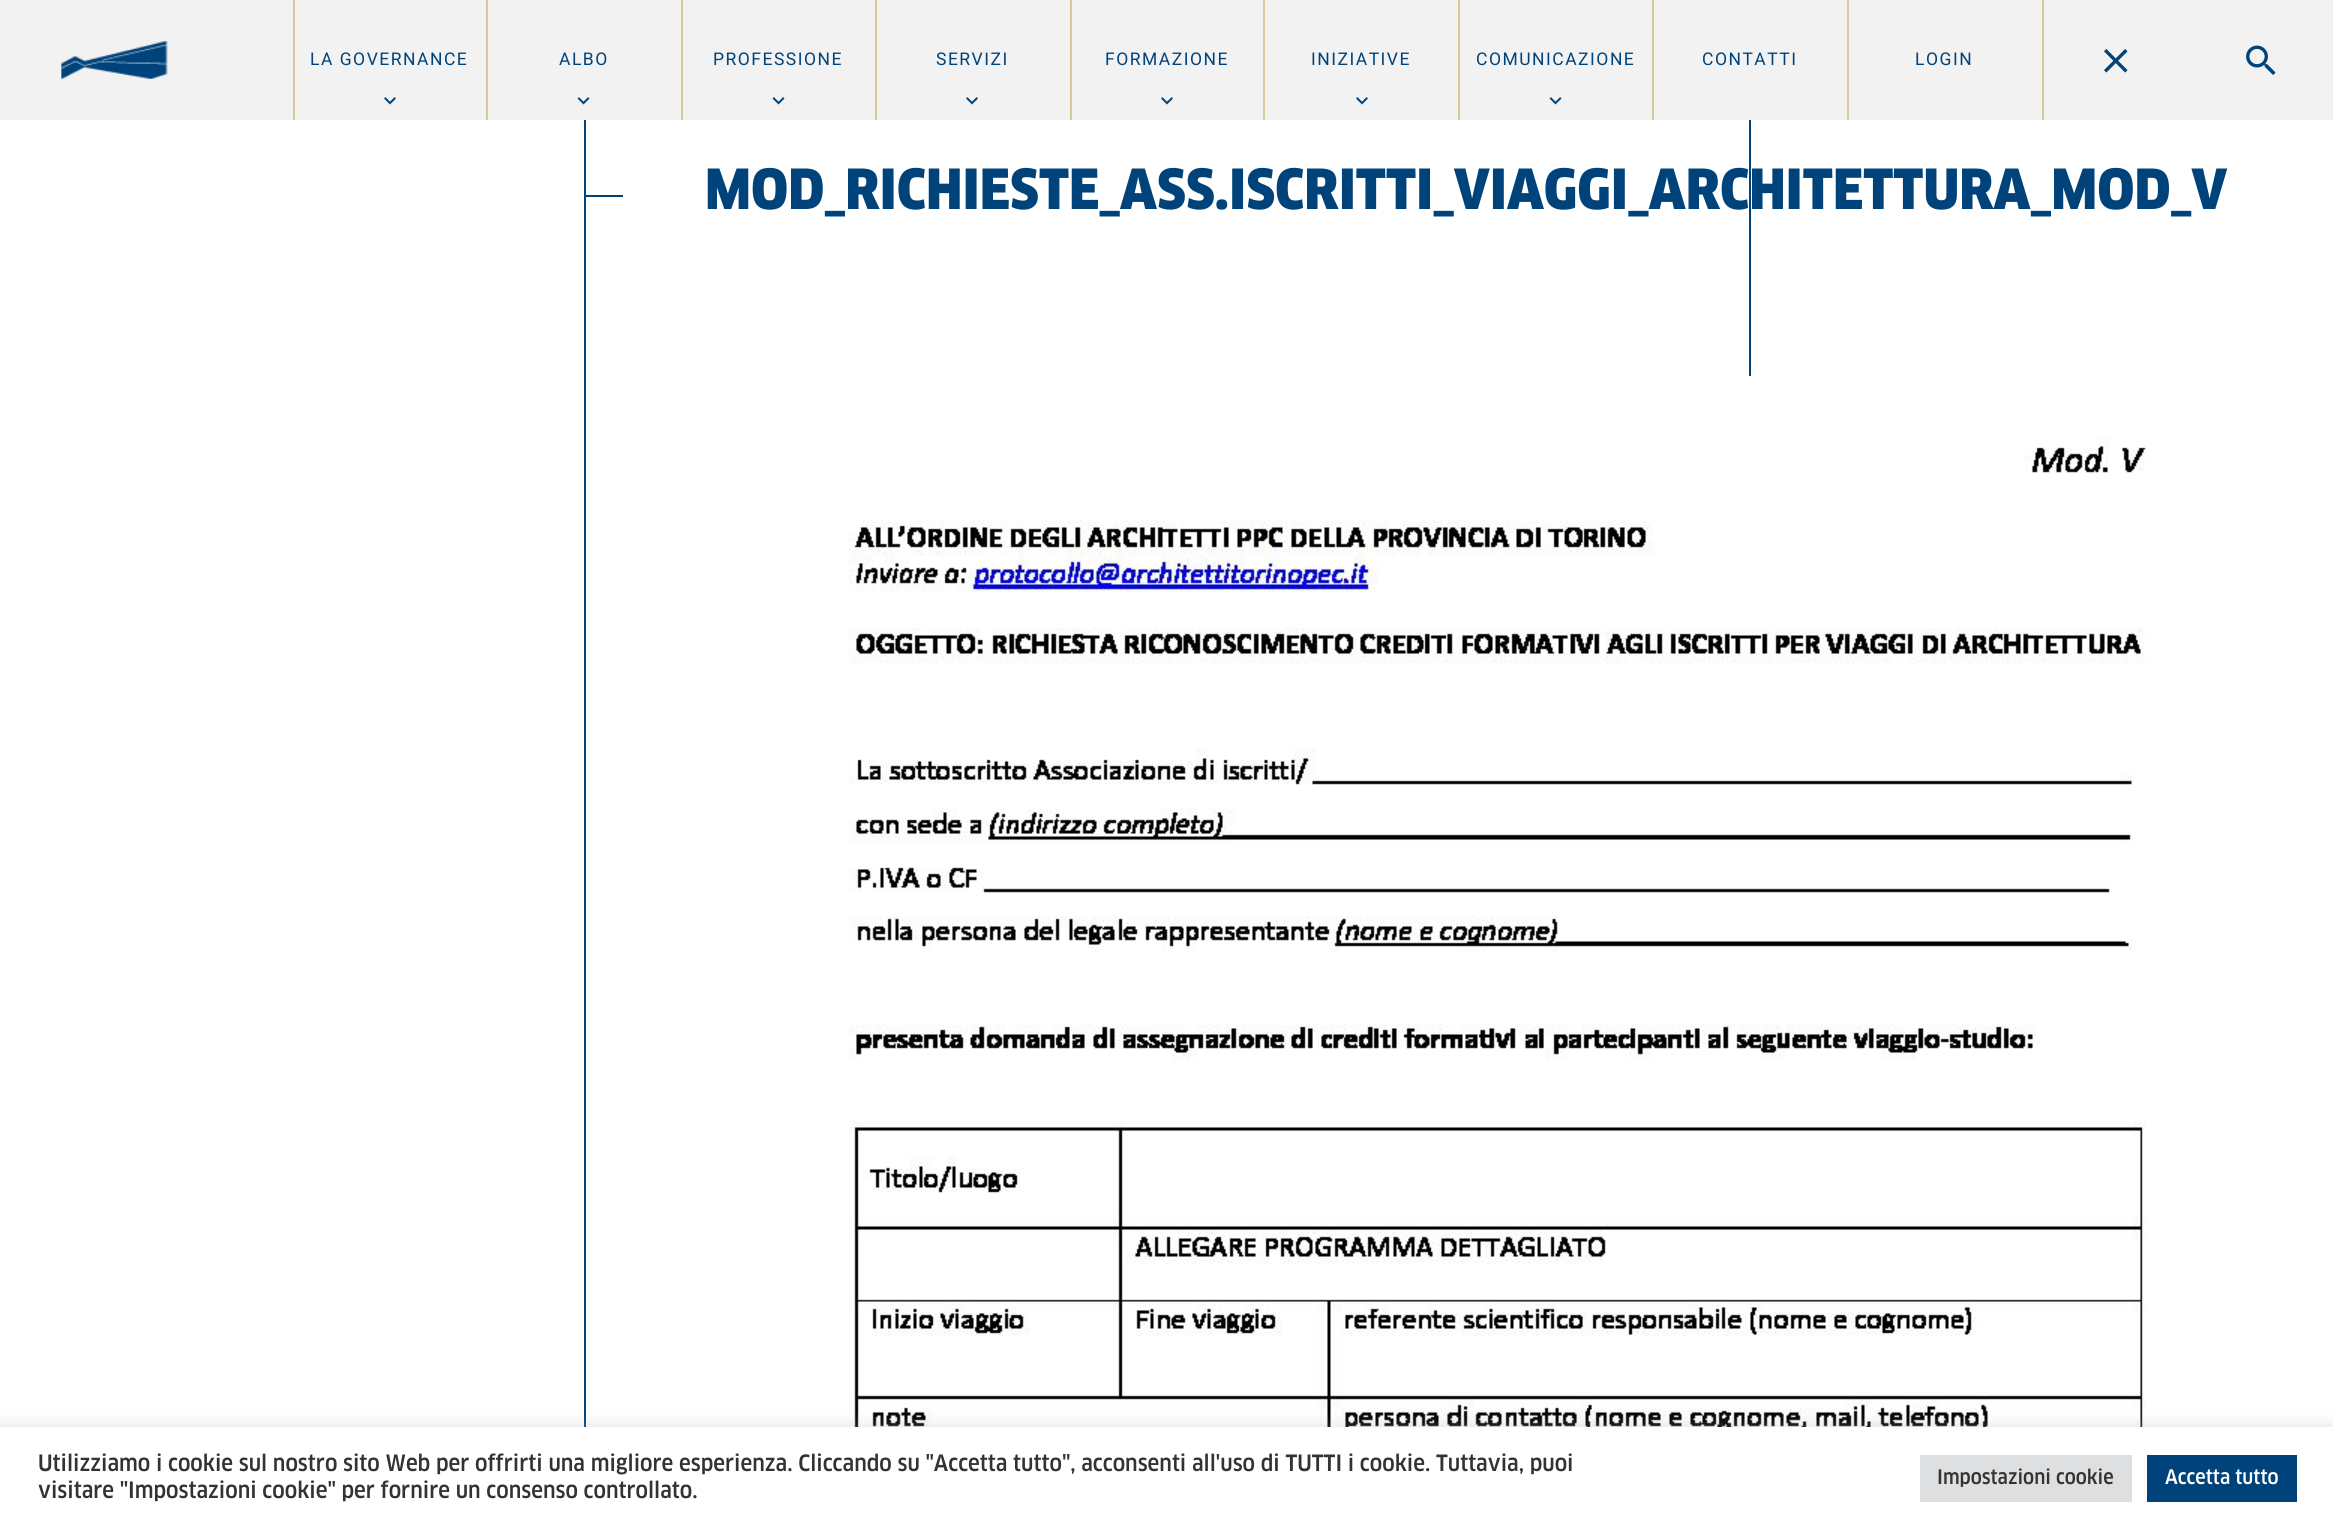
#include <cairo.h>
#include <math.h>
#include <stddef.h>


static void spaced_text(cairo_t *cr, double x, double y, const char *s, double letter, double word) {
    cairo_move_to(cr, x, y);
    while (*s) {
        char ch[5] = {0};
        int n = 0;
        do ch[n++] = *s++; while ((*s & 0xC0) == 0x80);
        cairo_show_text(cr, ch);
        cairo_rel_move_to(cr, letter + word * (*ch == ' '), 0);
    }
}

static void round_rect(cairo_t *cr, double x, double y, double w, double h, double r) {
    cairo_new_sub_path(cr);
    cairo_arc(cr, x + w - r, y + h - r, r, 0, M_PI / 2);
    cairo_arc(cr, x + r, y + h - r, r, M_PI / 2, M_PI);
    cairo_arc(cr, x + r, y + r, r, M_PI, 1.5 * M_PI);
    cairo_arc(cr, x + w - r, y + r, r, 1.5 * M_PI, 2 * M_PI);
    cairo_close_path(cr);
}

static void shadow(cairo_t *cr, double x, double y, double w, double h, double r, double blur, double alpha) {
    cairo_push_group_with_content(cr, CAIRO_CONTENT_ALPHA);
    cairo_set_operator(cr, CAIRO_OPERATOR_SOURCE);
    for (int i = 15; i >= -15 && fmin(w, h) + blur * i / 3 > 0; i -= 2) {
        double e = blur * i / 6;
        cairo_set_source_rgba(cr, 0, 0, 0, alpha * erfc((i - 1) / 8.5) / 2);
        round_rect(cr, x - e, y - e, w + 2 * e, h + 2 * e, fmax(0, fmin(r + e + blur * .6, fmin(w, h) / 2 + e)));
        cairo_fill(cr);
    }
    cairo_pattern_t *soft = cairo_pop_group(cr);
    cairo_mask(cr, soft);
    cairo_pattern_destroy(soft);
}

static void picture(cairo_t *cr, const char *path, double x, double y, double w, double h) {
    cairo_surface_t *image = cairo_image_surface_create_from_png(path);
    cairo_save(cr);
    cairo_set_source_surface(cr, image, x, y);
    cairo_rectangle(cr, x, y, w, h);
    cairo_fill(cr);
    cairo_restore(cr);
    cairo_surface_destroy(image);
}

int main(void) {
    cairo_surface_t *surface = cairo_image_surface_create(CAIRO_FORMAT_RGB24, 2333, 1530);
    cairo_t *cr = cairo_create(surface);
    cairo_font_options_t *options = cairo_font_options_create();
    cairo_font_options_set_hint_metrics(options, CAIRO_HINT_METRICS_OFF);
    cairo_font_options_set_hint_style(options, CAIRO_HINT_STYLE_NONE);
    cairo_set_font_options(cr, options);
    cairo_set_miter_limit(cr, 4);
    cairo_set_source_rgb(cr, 1, 1, 1);
    cairo_paint(cr);
    cairo_set_source_rgb(cr, 0.949, 0.949, 0.949);
    cairo_rectangle(cr, 0, 0, 2333, 120);
    cairo_fill(cr);
    picture(cr, "img1.png", 61, 41, 107, 38);
    picture(cr, "img2.png", 2104, 49, 24, 24);
    picture(cr, "img3.png", 2246, 45, 30, 30);
    cairo_set_source_rgb(cr, 0.839, 0.796, 0.616);
    cairo_rectangle(cr, 293, 0, 2, 120);
    cairo_fill(cr);
    picture(cr, "img4.png", 384, 97, 12, 8);
    cairo_select_font_face(cr, "Roboto", CAIRO_FONT_SLANT_NORMAL, CAIRO_FONT_WEIGHT_NORMAL);
    cairo_set_font_size(cr, 17.5);
    cairo_set_source_rgb(cr, 0, 0.263, 0.478);
    spaced_text(cr, 310, 65, "LA GOVERNANCE", 1.5, 0);
    cairo_set_source_rgb(cr, 0.839, 0.796, 0.616);
    cairo_rectangle(cr, 486, 0, 2, 120);
    cairo_fill(cr);
    picture(cr, "img5.png", 577, 97, 13, 8);
    cairo_set_source_rgb(cr, 0, 0.263, 0.478);
    spaced_text(cr, 559, 65, "ALBO", 1.5, 0);
    cairo_set_source_rgb(cr, 0.839, 0.796, 0.616);
    cairo_rectangle(cr, 681, 0, 2, 120);
    cairo_fill(cr);
    picture(cr, "img5.png", 772, 97, 13, 8);
    cairo_set_source_rgb(cr, 0, 0.263, 0.478);
    spaced_text(cr, 713, 65, "PROFESSIONE", 1.5, 0);
    cairo_set_source_rgb(cr, 0.839, 0.796, 0.616);
    cairo_rectangle(cr, 875, 0, 2, 120);
    cairo_fill(cr);
    picture(cr, "img4.png", 966, 97, 12, 8);
    cairo_set_source_rgb(cr, 0, 0.263, 0.478);
    spaced_text(cr, 936, 65, "SERVIZI", 1.5, 0);
    cairo_set_source_rgb(cr, 0.839, 0.796, 0.616);
    cairo_rectangle(cr, 1070, 0, 2, 120);
    cairo_fill(cr);
    picture(cr, "img4.png", 1161, 97, 12, 8);
    cairo_set_source_rgb(cr, 0, 0.263, 0.478);
    spaced_text(cr, 1105, 65, "FORMAZIONE", 1.5, 0);
    cairo_set_source_rgb(cr, 0.839, 0.796, 0.616);
    cairo_rectangle(cr, 1263, 0, 2, 120);
    cairo_fill(cr);
    picture(cr, "img4.png", 1356, 97, 12, 8);
    cairo_set_source_rgb(cr, 0, 0.263, 0.478);
    spaced_text(cr, 1311, 65, "INIZIATIVE", 1.5, 0);
    cairo_set_source_rgb(cr, 0.839, 0.796, 0.616);
    cairo_rectangle(cr, 1458, 0, 2, 120);
    cairo_fill(cr);
    picture(cr, "img5.png", 1549, 97, 13, 8);
    cairo_set_source_rgb(cr, 0, 0.263, 0.478);
    spaced_text(cr, 1476, 65, "COMUNICAZIONE", 1.5, 0);
    cairo_set_source_rgb(cr, 0.839, 0.796, 0.616);
    cairo_rectangle(cr, 1652, 0, 2, 120);
    cairo_fill(cr);
    cairo_set_source_rgb(cr, 0, 0.263, 0.478);
    spaced_text(cr, 1702, 65, "CONTATTI", 1.5, 0);
    cairo_set_source_rgb(cr, 0.839, 0.796, 0.616);
    cairo_rectangle(cr, 2042, 0, 2, 120);
    cairo_fill(cr);
    cairo_rectangle(cr, 1847, 0, 2, 120);
    cairo_fill(cr);
    cairo_set_source_rgb(cr, 0, 0.263, 0.478);
    spaced_text(cr, 1915, 65, "LOGIN", 1.5, 0);
    cairo_rectangle(cr, 1749, 120, 2, 256);
    cairo_fill(cr);
    cairo_rectangle(cr, 584, 120, 2, 1307);
    cairo_fill(cr);
    cairo_rectangle(cr, 585, 195, 38, 2);
    cairo_fill(cr);
    cairo_select_font_face(cr, "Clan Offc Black", CAIRO_FONT_SLANT_NORMAL, CAIRO_FONT_WEIGHT_NORMAL);
    cairo_set_font_size(cr, 54);
    cairo_move_to(cr, 705, 209);
    cairo_show_text(cr, "MOD_RICHIESTE_ASS.ISCRITTI_VIAGGI_ARCHITETTURA_MOD_V");
    picture(cr, "img6.png", 849, 376, 1297, 1051);
    cairo_set_source_rgb(cr, 0.675, 0.671, 0.671);
    shadow(cr, 0, 1425, 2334, 104, 0, 7.5, 0.3);
    cairo_set_source_rgb(cr, 1, 1, 1);
    cairo_rectangle(cr, 0, 1427, 2333, 103);
    cairo_fill(cr);
    cairo_select_font_face(cr, "Clan Offc Medium", CAIRO_FONT_SLANT_NORMAL, CAIRO_FONT_WEIGHT_NORMAL);
    cairo_set_font_size(cr, 22);
    cairo_set_source_rgb(cr, 0.2, 0.2, 0.2);
    cairo_move_to(cr, 38, 1471);
    cairo_show_text(cr, "Utilizziamo i cookie sul nostro sito Web per offrirti una migliore esperienza. Cliccando su \"Accetta tutto\", acconsenti all'uso di TUTTI i cookie. Tuttavia, puoi");
    cairo_move_to(cr, 38, 1498);
    cairo_show_text(cr, "visitare \"Impostazioni cookie\" per fornire un consenso controllato.");
    cairo_set_source_rgb(cr, 0.871, 0.875, 0.878);
    cairo_rectangle(cr, 1920, 1455, 212, 47);
    cairo_fill(cr);
    cairo_set_font_size(cr, 19.5);
    cairo_set_source_rgb(cr, 0.2, 0.2, 0.2);
    cairo_move_to(cr, 1937, 1484);
    cairo_show_text(cr, "Impostazioni cookie");
    cairo_set_source_rgb(cr, 0, 0.263, 0.478);
    cairo_rectangle(cr, 2147, 1455, 150, 47);
    cairo_fill(cr);
    cairo_set_source_rgb(cr, 1, 1, 1);
    cairo_move_to(cr, 2165, 1484);
    cairo_show_text(cr, "Accetta tutto");
    cairo_surface_write_to_png(surface, "page.png");
    cairo_font_options_destroy(options);
    cairo_destroy(cr);
    cairo_surface_destroy(surface);
    return 0;
}
